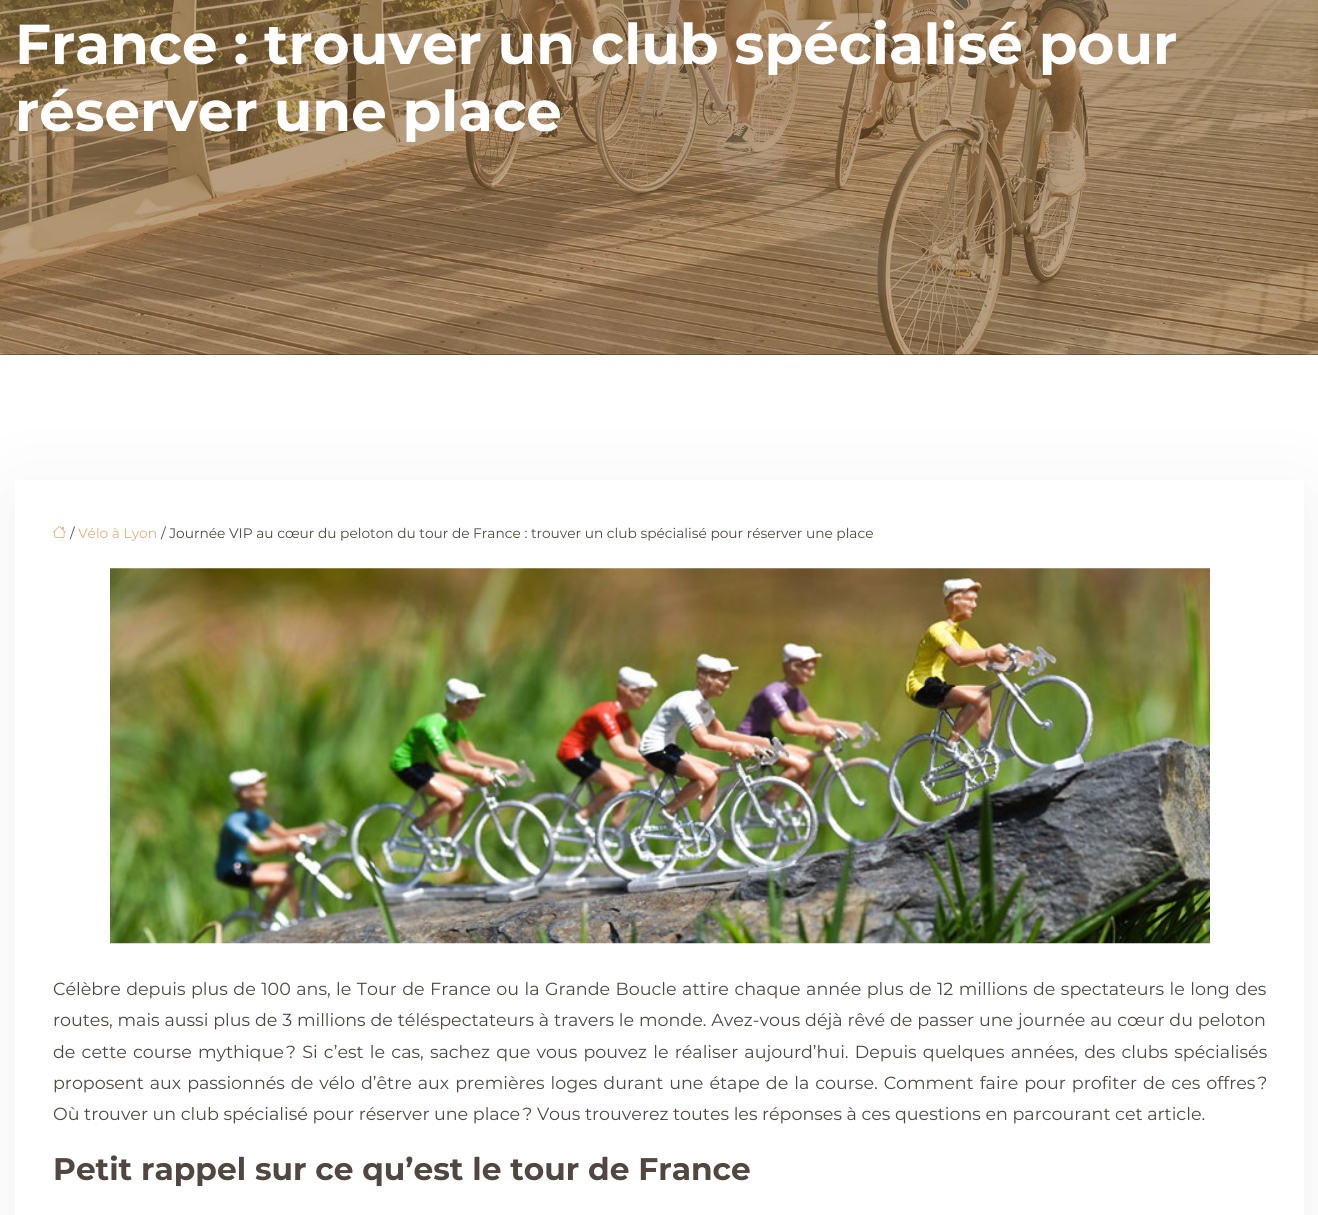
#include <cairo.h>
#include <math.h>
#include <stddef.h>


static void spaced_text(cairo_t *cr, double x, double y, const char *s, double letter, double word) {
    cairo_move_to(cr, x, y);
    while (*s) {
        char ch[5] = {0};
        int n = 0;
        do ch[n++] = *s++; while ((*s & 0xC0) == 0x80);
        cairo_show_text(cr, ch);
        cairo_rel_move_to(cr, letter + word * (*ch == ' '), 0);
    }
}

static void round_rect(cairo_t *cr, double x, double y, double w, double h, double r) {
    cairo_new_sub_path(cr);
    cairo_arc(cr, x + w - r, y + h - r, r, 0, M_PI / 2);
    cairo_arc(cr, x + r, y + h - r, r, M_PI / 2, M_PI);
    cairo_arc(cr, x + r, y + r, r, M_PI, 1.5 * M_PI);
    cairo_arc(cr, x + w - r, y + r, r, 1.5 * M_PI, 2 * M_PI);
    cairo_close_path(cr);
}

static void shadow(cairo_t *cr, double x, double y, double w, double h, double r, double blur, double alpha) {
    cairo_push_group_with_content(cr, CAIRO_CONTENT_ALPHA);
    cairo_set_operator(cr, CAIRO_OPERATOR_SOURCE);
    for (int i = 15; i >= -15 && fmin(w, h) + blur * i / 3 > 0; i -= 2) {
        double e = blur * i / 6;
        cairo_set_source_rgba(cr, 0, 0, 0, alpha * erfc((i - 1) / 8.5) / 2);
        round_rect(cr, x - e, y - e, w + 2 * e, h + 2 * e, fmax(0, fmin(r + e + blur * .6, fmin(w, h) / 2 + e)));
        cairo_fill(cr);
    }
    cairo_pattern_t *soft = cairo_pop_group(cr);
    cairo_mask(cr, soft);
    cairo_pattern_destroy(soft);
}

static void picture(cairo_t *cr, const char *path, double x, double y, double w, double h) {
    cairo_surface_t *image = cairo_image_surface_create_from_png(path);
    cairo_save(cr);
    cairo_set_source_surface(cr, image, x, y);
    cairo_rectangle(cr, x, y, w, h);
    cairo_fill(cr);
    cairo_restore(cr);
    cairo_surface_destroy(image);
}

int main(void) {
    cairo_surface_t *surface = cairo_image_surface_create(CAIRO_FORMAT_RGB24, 1318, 1215);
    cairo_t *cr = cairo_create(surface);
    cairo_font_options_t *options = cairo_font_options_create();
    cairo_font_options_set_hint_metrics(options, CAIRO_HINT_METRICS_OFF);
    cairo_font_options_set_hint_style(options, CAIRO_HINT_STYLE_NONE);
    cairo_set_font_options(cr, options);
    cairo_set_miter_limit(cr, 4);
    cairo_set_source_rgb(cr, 1, 1, 1);
    cairo_paint(cr);
    cairo_set_source_rgb(cr, 0.212, 0.247, 0.212);
    cairo_rectangle(cr, 0, 354, 1318, 1);
    cairo_fill(cr);
    picture(cr, "img1.png", 0, 0, 1318, 355);
    cairo_select_font_face(cr, "Montserrat", CAIRO_FONT_SLANT_NORMAL, CAIRO_FONT_WEIGHT_BOLD);
    cairo_set_font_size(cr, 56.25);
    cairo_set_source_rgb(cr, 1, 1, 1);
    cairo_move_to(cr, 15, 64);
    cairo_show_text(cr, "France : trouver un club spécialisé pour");
    cairo_move_to(cr, 15, 131);
    cairo_show_text(cr, "réserver une place");
    cairo_set_source_rgb(cr, 0, 0, 0);
    shadow(cr, 15, 499, 1289, 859, 0, 47.5, 0.06);
    cairo_set_source_rgb(cr, 1, 1, 1);
    cairo_rectangle(cr, 15, 480, 1289, 735);
    cairo_fill(cr);
    picture(cr, "img2.png", 53, 526, 13, 12);
    cairo_select_font_face(cr, "Montserrat", CAIRO_FONT_SLANT_NORMAL, CAIRO_FONT_WEIGHT_NORMAL);
    cairo_set_font_size(cr, 13.75);
    cairo_set_source_rgb(cr, 0.314, 0.282, 0.251);
    cairo_move_to(cr, 70, 538);
    cairo_show_text(cr, "/");
    cairo_set_source_rgb(cr, 0.859, 0.694, 0.502);
    cairo_move_to(cr, 78, 538);
    cairo_show_text(cr, "Vélo à Lyon");
    cairo_set_source_rgb(cr, 0.314, 0.282, 0.251);
    cairo_move_to(cr, 161, 538);
    cairo_show_text(cr, "/ Journée VIP au cœur du peloton du tour de France : trouver un club spécialisé pour réserver une place");
    picture(cr, "img3.png", 110, 568, 1100, 376);
    cairo_set_font_size(cr, 17.5);
    spaced_text(cr, 53, 995, "Célèbre depuis plus de 100 ans, le Tour de France ou la Grande Boucle attire chaque année plus de 12 millions de spectateurs le long des", 0, 0.9);
    spaced_text(cr, 53, 1026, "routes, mais aussi plus de 3 millions de téléspectateurs à travers le monde. Avez-vous déjà rêvé de passer une journée au cœur du peloton", 0, 0.25);
    spaced_text(cr, 53, 1058, "de cette course mythique ? Si c’est le cas, sachez que vous pouvez le réaliser aujourd’hui. Depuis quelques années, des clubs spécialisés", 0, 1.6);
    spaced_text(cr, 53, 1089, "proposent aux passionnés de vélo d’être aux premières loges durant une étape de la course. Comment faire pour profiter de ces offres ?", 0, 1.4);
    cairo_move_to(cr, 53, 1120);
    cairo_show_text(cr, "Où trouver un club spécialisé pour réserver une place ? Vous trouverez toutes les réponses à ces questions en parcourant cet article.");
    cairo_select_font_face(cr, "Montserrat", CAIRO_FONT_SLANT_NORMAL, CAIRO_FONT_WEIGHT_BOLD);
    cairo_set_font_size(cr, 31.25);
    cairo_move_to(cr, 53, 1180);
    cairo_show_text(cr, "Petit rappel sur ce qu’est le tour de France");
    cairo_surface_write_to_png(surface, "page.png");
    cairo_font_options_destroy(options);
    cairo_destroy(cr);
    cairo_surface_destroy(surface);
    return 0;
}
